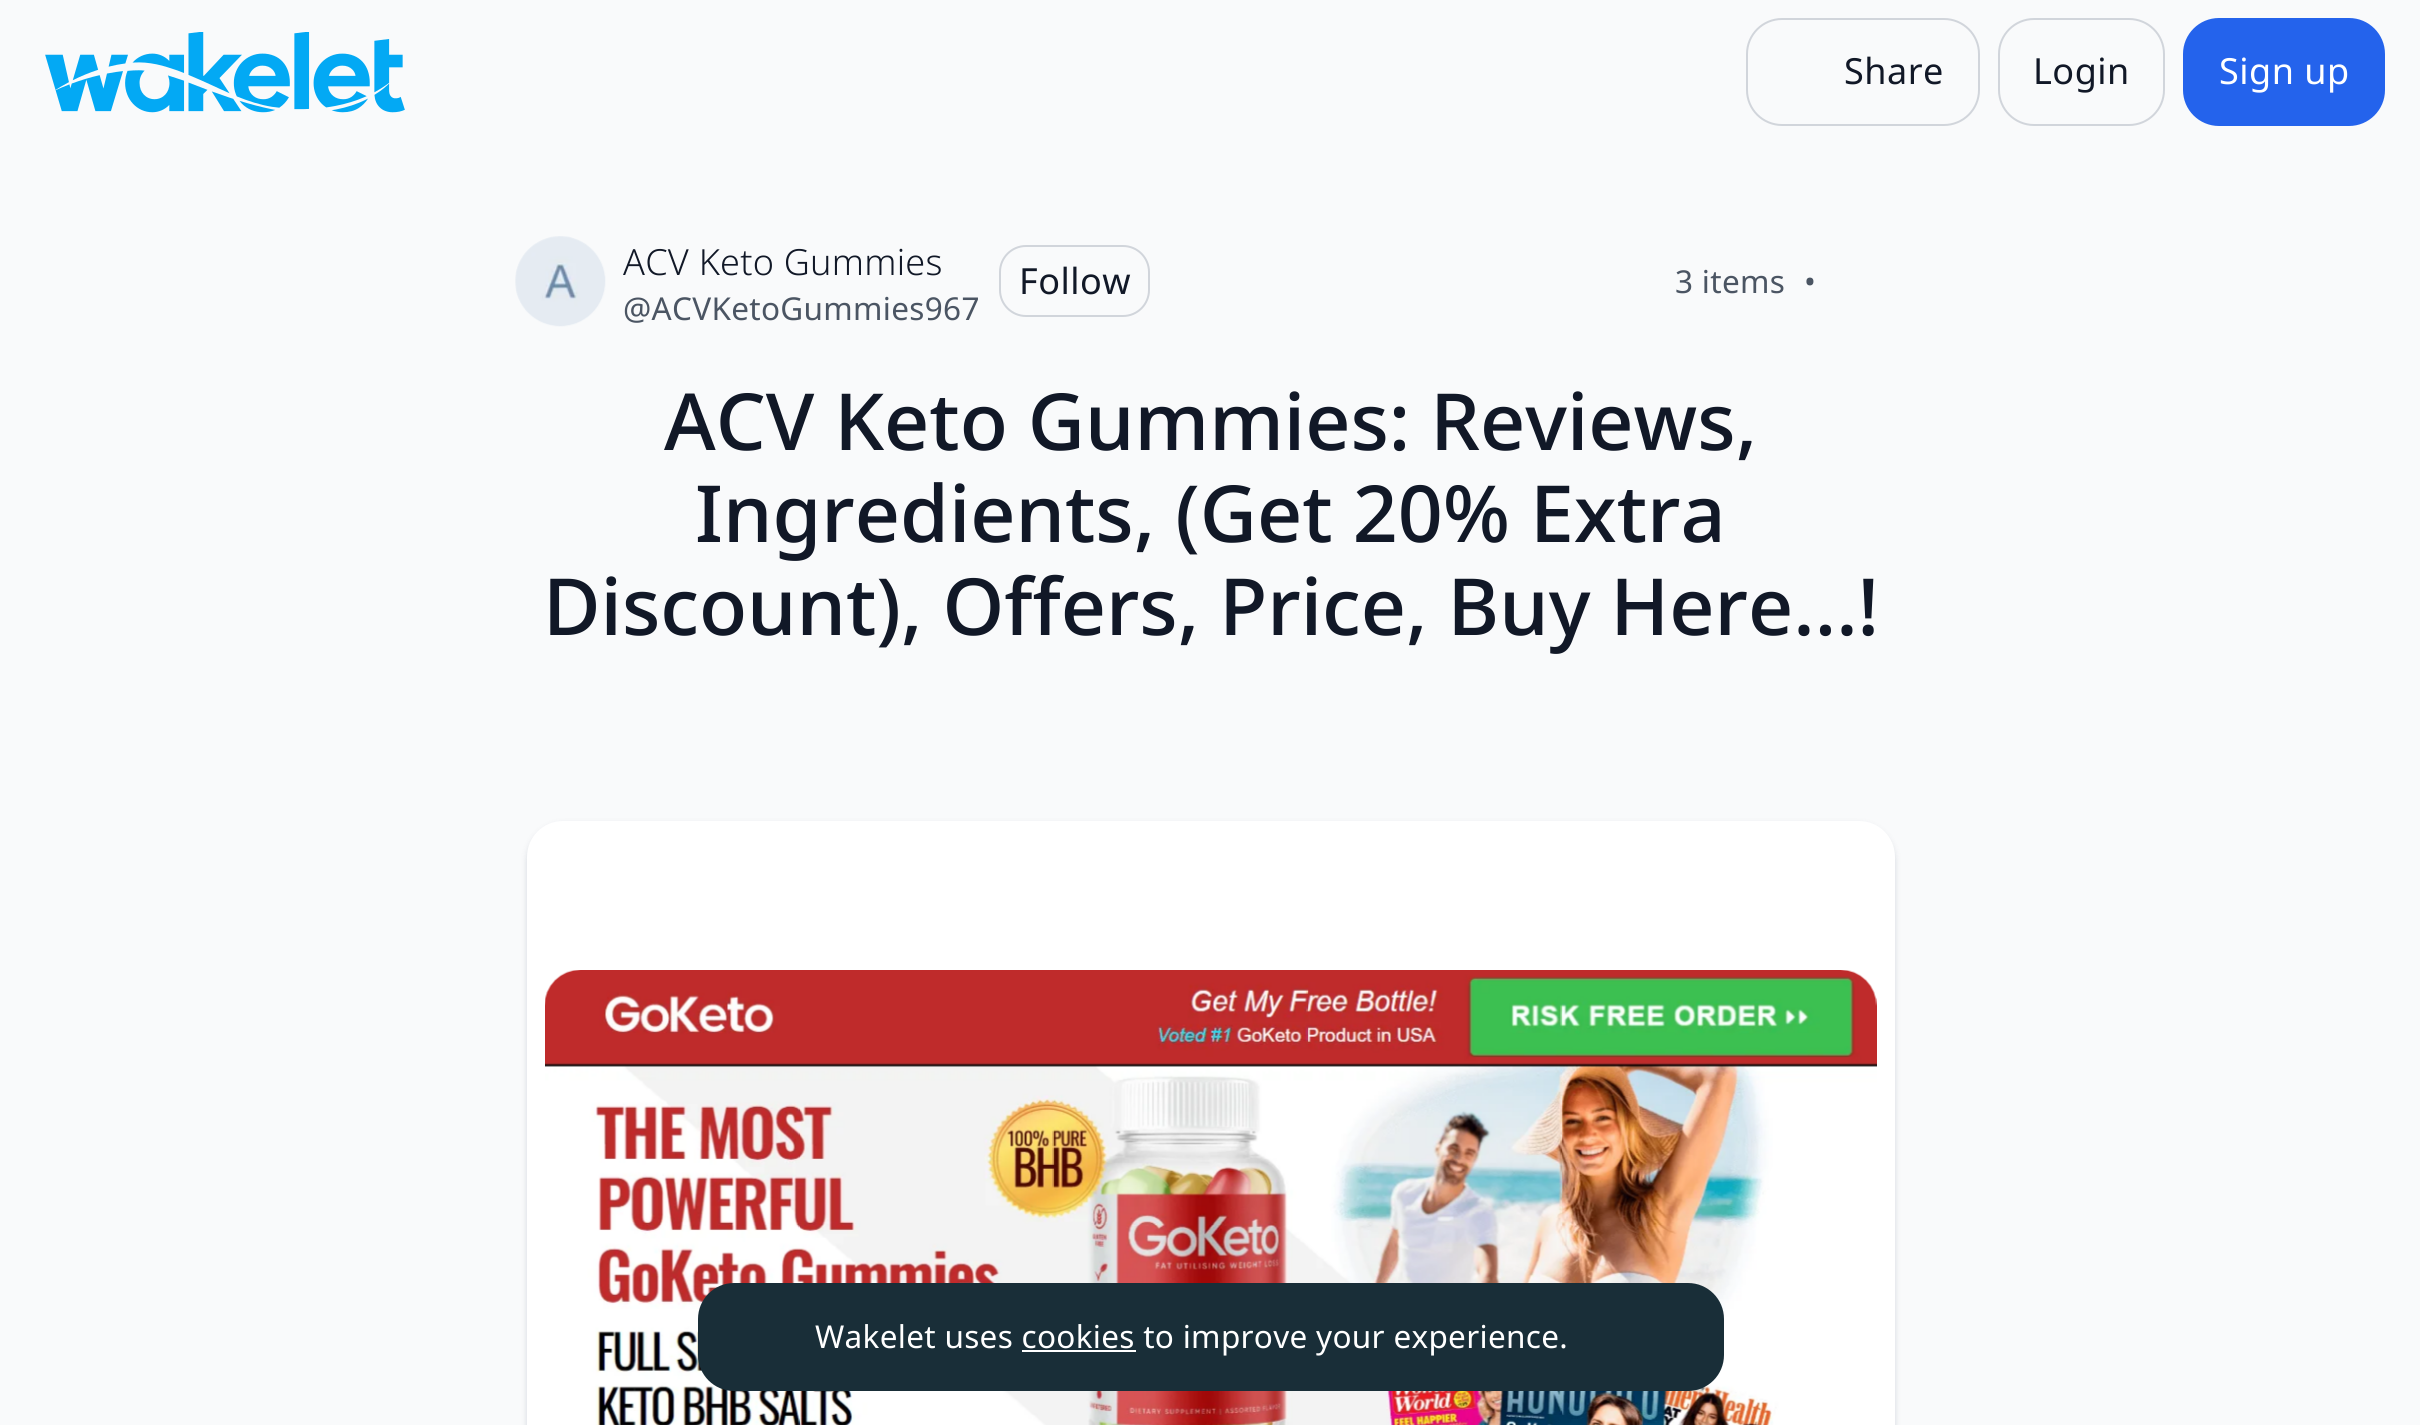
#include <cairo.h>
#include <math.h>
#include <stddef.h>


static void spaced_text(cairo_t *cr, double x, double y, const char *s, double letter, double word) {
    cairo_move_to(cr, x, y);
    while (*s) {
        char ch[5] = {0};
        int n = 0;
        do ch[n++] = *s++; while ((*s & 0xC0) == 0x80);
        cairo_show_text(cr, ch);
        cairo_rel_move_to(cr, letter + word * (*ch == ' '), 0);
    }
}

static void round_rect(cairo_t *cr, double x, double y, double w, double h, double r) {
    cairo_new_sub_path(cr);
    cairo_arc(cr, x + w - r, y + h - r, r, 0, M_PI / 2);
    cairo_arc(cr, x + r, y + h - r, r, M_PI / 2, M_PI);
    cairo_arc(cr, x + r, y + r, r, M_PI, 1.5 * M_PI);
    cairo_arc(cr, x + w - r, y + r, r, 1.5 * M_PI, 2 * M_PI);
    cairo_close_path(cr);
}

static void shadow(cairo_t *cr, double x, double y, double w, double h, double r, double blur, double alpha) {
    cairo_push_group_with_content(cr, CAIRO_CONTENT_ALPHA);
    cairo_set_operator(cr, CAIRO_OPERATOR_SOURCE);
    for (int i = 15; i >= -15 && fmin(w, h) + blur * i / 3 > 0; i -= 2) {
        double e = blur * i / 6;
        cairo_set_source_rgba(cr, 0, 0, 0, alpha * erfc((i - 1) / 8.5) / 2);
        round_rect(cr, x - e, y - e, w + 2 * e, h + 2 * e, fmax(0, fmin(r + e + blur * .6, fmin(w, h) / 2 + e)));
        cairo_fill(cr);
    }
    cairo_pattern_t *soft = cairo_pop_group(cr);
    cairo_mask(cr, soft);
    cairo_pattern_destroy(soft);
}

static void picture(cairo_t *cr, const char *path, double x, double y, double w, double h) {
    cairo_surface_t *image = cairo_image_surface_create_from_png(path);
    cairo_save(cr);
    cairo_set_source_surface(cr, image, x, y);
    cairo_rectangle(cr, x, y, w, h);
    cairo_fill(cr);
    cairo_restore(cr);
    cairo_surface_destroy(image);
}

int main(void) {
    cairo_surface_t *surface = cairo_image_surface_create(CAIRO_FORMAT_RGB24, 2420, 1425);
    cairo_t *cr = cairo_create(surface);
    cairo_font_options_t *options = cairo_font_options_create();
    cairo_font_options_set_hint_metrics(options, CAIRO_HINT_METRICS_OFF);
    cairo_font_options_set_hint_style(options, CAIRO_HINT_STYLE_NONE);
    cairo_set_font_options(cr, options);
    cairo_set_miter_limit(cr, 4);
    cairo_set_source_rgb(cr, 0.976, 0.98, 0.984);
    cairo_paint(cr);
    picture(cr, "img1.png", 45, 32, 360, 81);
    round_rect(cr, 1747, 19, 232, 106, 35);
    cairo_set_source_rgb(cr, 0.82, 0.835, 0.859);
    cairo_stroke(cr);
    cairo_select_font_face(cr, "Noto Sans", CAIRO_FONT_SLANT_NORMAL, CAIRO_FONT_WEIGHT_NORMAL);
    cairo_set_font_size(cr, 36);
    cairo_set_source_rgb(cr, 0.067, 0.094, 0.153);
    spaced_text(cr, 1844, 84, "Share", 0.5, 0);
    round_rect(cr, 1999, 19, 165, 106, 35);
    cairo_set_source_rgb(cr, 0.82, 0.835, 0.859);
    cairo_stroke(cr);
    cairo_set_source_rgb(cr, 0.067, 0.094, 0.153);
    spaced_text(cr, 2033, 84, "Login", 0.5, 0);
    cairo_set_source_rgb(cr, 0.141, 0.388, 0.922);
    round_rect(cr, 2184, 19, 200, 106, 35);
    cairo_fill_preserve(cr);
    cairo_stroke(cr);
    cairo_set_source_rgb(cr, 1, 1, 1);
    spaced_text(cr, 2219, 84, "Sign up", 0.5, 0);
    picture(cr, "img2.png", 515, 236, 91, 91);
    cairo_select_font_face(cr, "Noto Sans Light", CAIRO_FONT_SLANT_NORMAL, CAIRO_FONT_WEIGHT_NORMAL);
    cairo_set_source_rgb(cr, 0.067, 0.094, 0.153);
    spaced_text(cr, 623, 275, "ACV Keto Gummies", 0.25, 0);
    cairo_select_font_face(cr, "Noto Sans", CAIRO_FONT_SLANT_NORMAL, CAIRO_FONT_WEIGHT_NORMAL);
    cairo_set_font_size(cr, 31.5);
    cairo_set_source_rgb(cr, 0.294, 0.333, 0.388);
    spaced_text(cr, 623, 320, "@ACVKetoGummies967", 0.3, 0);
    round_rect(cr, 1000, 246, 149, 70, 26);
    cairo_set_source_rgb(cr, 0.82, 0.835, 0.859);
    cairo_stroke(cr);
    cairo_set_font_size(cr, 36);
    cairo_set_source_rgb(cr, 0.067, 0.094, 0.153);
    spaced_text(cr, 1019, 294, "Follow", 0.5, 0);
    cairo_set_font_size(cr, 31.5);
    cairo_set_source_rgb(cr, 0.294, 0.333, 0.388);
    spaced_text(cr, 1675, 293, "3 items", 0.3, 0);
    spaced_text(cr, 1804, 293, "•", 0.3, 0);
    cairo_select_font_face(cr, "Noto Sans Medium", CAIRO_FONT_SLANT_NORMAL, CAIRO_FONT_WEIGHT_NORMAL);
    cairo_set_font_size(cr, 78.75);
    cairo_set_source_rgb(cr, 0.067, 0.094, 0.153);
    spaced_text(cr, 664, 450, "ACV Keto Gummies: Reviews,", 0, -0.5);
    spaced_text(cr, 695, 542, "Ingredients, (Get 20% Extra", 0, -0.5);
    spaced_text(cr, 543, 635, "Discount), Offers, Price, Buy Here...!", 0, -0.5);
    cairo_set_source_rgb(cr, 0, 0.094, 0.239);
    shadow(cr, 527, 824, 1368, 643, 36, 2, 0.06);
    shadow(cr, 527, 824, 1368, 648, 36, 3.5, 0.1);
    cairo_set_source_rgb(cr, 1, 1, 1);
    cairo_new_path(cr);
    cairo_move_to(cr, 563, 821);
    cairo_line_to(cr, 1859, 821);
    cairo_curve_to(cr, 1879, 821, 1895, 837, 1895, 857);
    cairo_line_to(cr, 1895, 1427);
    cairo_line_to(cr, 527, 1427);
    cairo_line_to(cr, 527, 857);
    cairo_curve_to(cr, 527, 837, 543, 821, 563, 821);
    cairo_close_path(cr);
    cairo_fill(cr);
    picture(cr, "img3.png", 545, 970, 1332, 455);
    cairo_set_source_rgb(cr, 0.098, 0.18, 0.22);
    round_rect(cr, 698, 1283, 1026, 108, 36);
    cairo_fill(cr);
    cairo_select_font_face(cr, "Noto Sans", CAIRO_FONT_SLANT_NORMAL, CAIRO_FONT_WEIGHT_NORMAL);
    cairo_set_font_size(cr, 31.5);
    cairo_set_source_rgb(cr, 1, 1, 1);
    spaced_text(cr, 815, 1348, "Wakelet uses cookies to improve your experience.", 0.3, 0);
    cairo_rectangle(cr, 1022, 1350, 114, 2);
    cairo_fill(cr);
    cairo_surface_write_to_png(surface, "page.png");
    cairo_font_options_destroy(options);
    cairo_destroy(cr);
    cairo_surface_destroy(surface);
    return 0;
}
